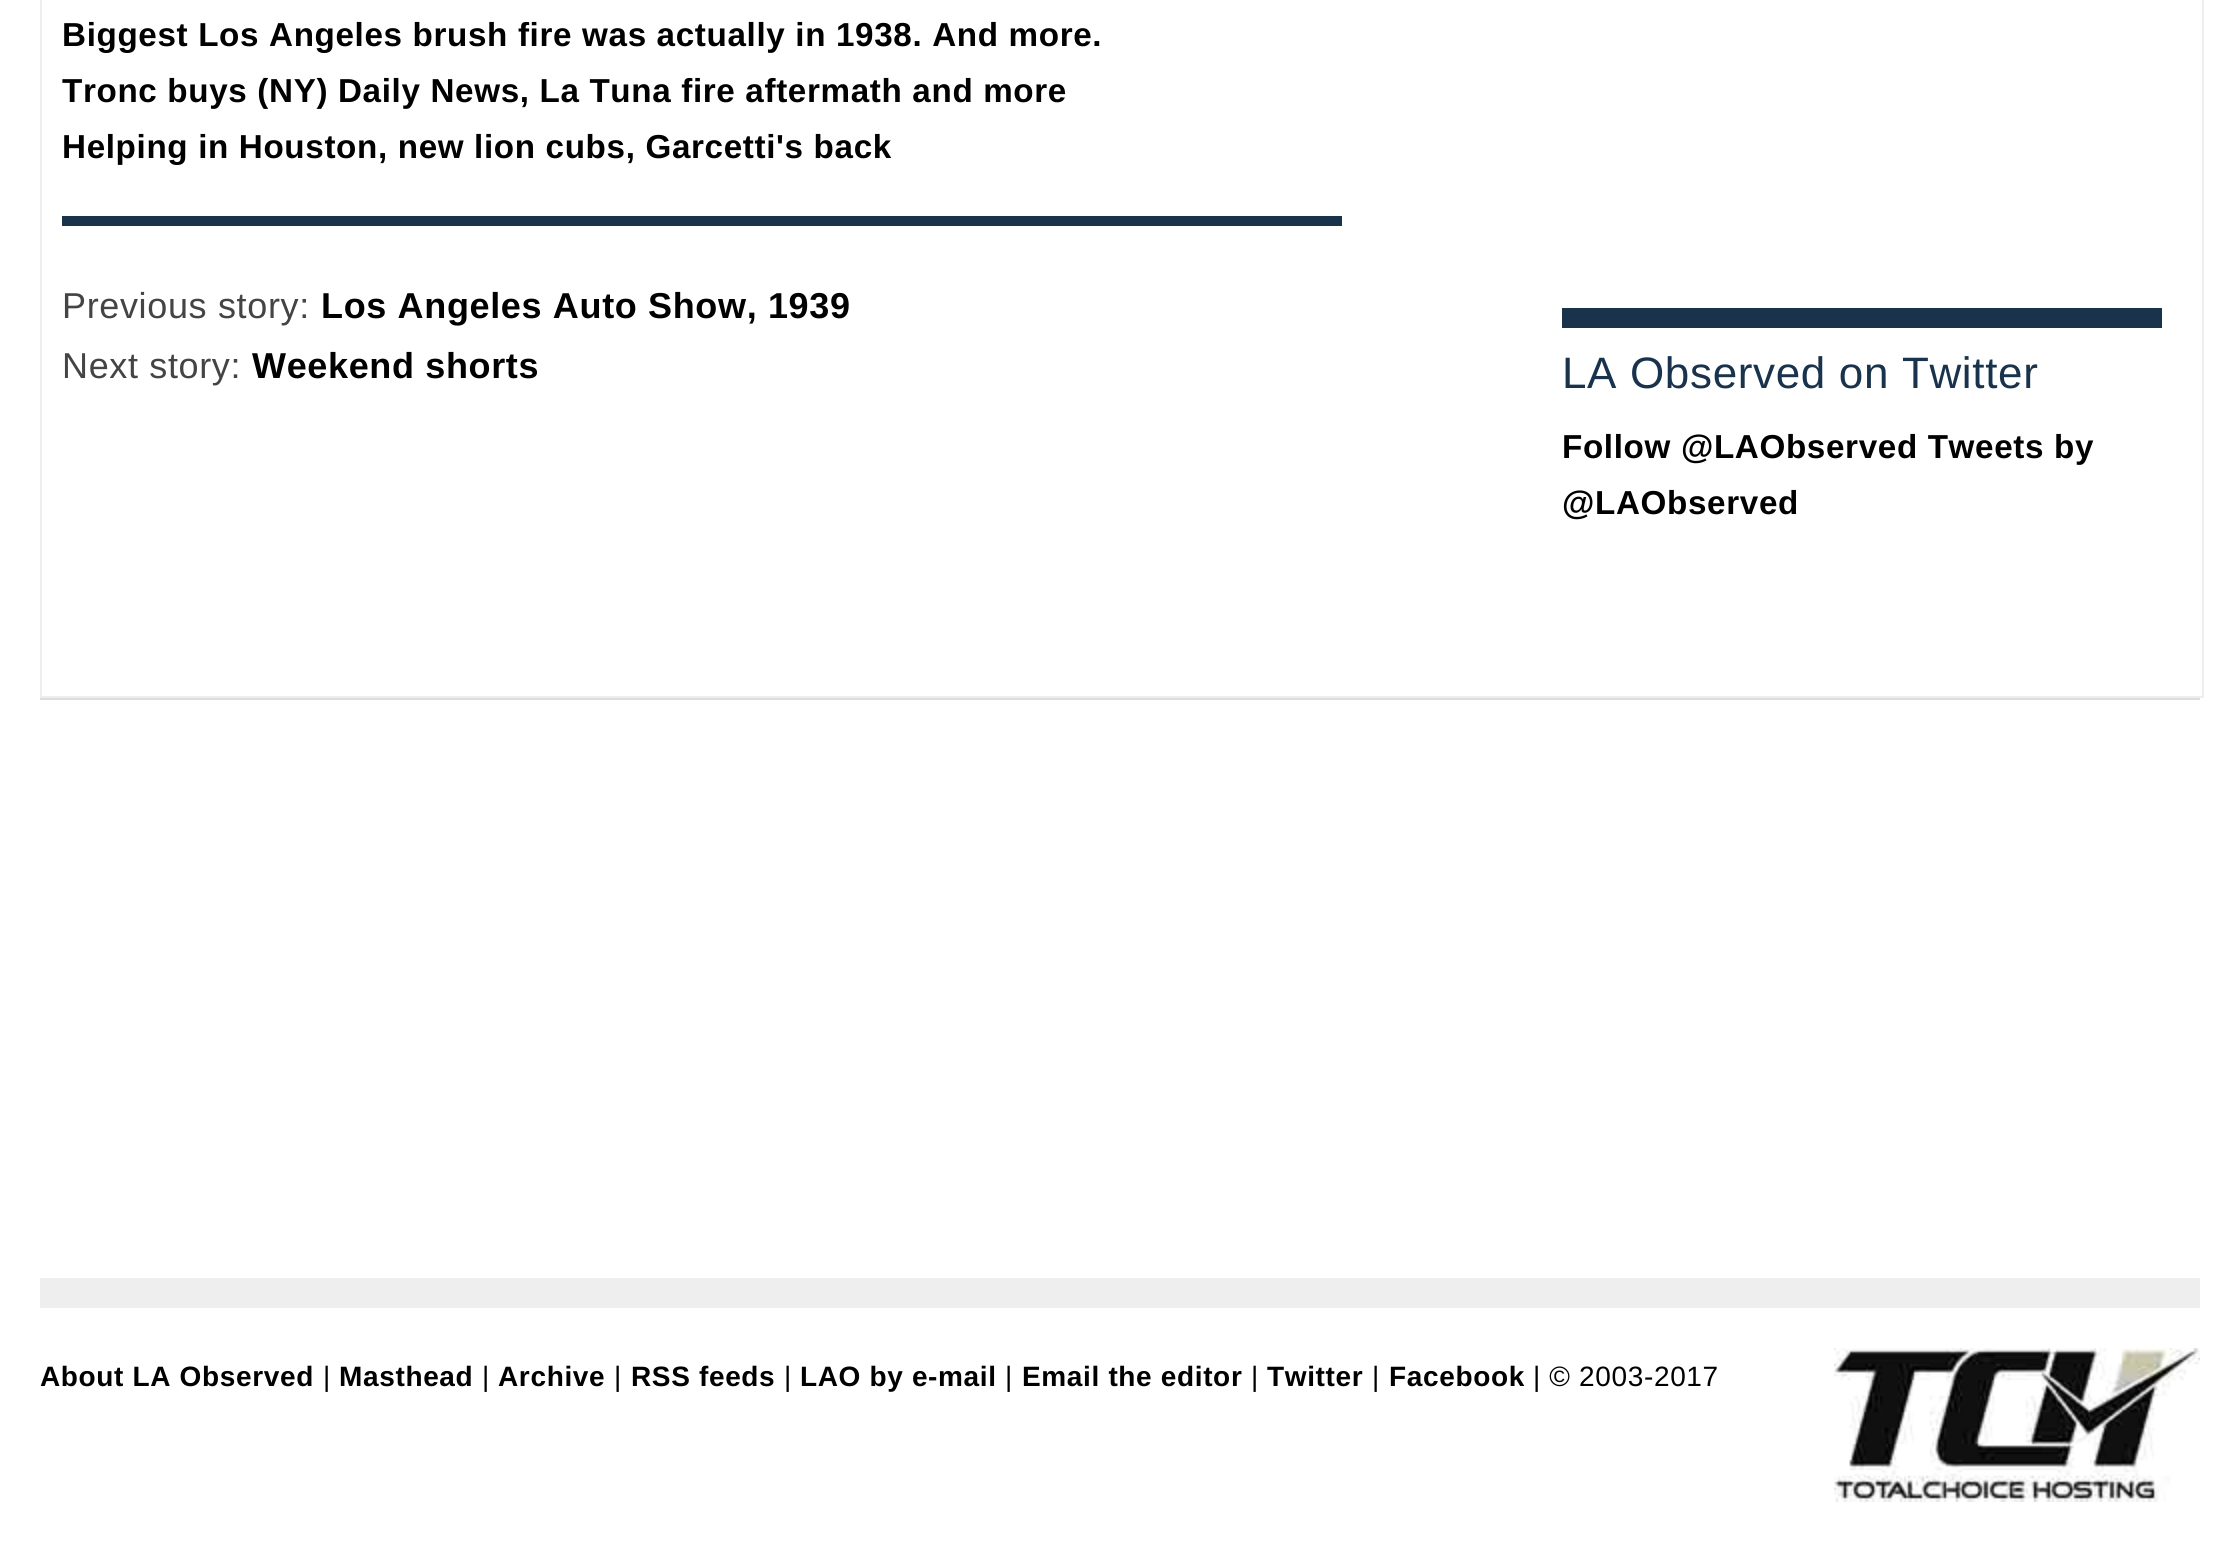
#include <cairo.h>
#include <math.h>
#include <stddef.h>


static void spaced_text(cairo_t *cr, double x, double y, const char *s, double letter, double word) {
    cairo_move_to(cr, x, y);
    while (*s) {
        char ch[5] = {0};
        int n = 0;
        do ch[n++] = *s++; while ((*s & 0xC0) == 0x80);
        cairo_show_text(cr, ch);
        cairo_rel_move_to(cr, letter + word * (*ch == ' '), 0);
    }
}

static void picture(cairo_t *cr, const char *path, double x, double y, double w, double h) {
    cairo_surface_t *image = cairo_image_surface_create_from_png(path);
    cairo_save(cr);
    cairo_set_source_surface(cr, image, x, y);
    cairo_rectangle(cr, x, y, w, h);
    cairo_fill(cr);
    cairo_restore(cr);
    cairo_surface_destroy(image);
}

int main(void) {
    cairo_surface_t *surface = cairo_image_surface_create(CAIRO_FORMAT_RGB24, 2227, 1561);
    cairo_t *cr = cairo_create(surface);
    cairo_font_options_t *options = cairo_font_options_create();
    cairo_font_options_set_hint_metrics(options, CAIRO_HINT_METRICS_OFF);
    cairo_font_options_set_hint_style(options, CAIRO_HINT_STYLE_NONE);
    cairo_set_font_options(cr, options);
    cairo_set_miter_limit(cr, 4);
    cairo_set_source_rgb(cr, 1, 1, 1);
    cairo_paint(cr);
    cairo_set_source_rgb(cr, 0.933, 0.933, 0.933);
    cairo_rectangle(cr, 2202, 0, 2, 698);
    cairo_fill(cr);
    cairo_rectangle(cr, 40, 696, 2164, 2);
    cairo_fill(cr);
    cairo_rectangle(cr, 40, 0, 2, 698);
    cairo_fill(cr);
    cairo_select_font_face(cr, "Liberation Sans", CAIRO_FONT_SLANT_NORMAL, CAIRO_FONT_WEIGHT_BOLD);
    cairo_set_font_size(cr, 33.2);
    cairo_set_source_rgb(cr, 0, 0, 0);
    spaced_text(cr, 62, 46, "Biggest Los Angeles brush fire was actually in 1938. And more.", 0.65, 0);
    spaced_text(cr, 62, 102, "Tronc buys (NY) Daily News, La Tuna fire aftermath and more", 0.65, 0);
    spaced_text(cr, 62, 158, "Helping in Houston, new lion cubs, Garcetti's back", 0.65, 0);
    cairo_set_source_rgb(cr, 0.098, 0.2, 0.302);
    cairo_rectangle(cr, 62, 216, 1280, 10);
    cairo_fill(cr);
    cairo_select_font_face(cr, "Liberation Sans", CAIRO_FONT_SLANT_NORMAL, CAIRO_FONT_WEIGHT_NORMAL);
    cairo_set_font_size(cr, 36);
    cairo_set_source_rgb(cr, 0.267, 0.267, 0.267);
    spaced_text(cr, 62, 318, "Previous story:", 0.65, 0);
    cairo_select_font_face(cr, "Liberation Sans", CAIRO_FONT_SLANT_NORMAL, CAIRO_FONT_WEIGHT_BOLD);
    cairo_set_source_rgb(cr, 0, 0, 0);
    spaced_text(cr, 321, 318, "Los Angeles Auto Show, 1939", 0.65, 0);
    cairo_select_font_face(cr, "Liberation Sans", CAIRO_FONT_SLANT_NORMAL, CAIRO_FONT_WEIGHT_NORMAL);
    cairo_set_source_rgb(cr, 0.267, 0.267, 0.267);
    spaced_text(cr, 62, 378, "Next story:", 0.65, 0);
    cairo_select_font_face(cr, "Liberation Sans", CAIRO_FONT_SLANT_NORMAL, CAIRO_FONT_WEIGHT_BOLD);
    cairo_set_source_rgb(cr, 0, 0, 0);
    spaced_text(cr, 252, 378, "Weekend shorts", 0.65, 0);
    cairo_set_source_rgb(cr, 0.098, 0.2, 0.302);
    cairo_rectangle(cr, 1562, 308, 600, 20);
    cairo_fill(cr);
    cairo_select_font_face(cr, "Liberation Sans", CAIRO_FONT_SLANT_NORMAL, CAIRO_FONT_WEIGHT_NORMAL);
    cairo_set_font_size(cr, 44);
    spaced_text(cr, 1562, 388, "LA Observed on Twitter", 0.65, 0);
    cairo_select_font_face(cr, "Liberation Sans", CAIRO_FONT_SLANT_NORMAL, CAIRO_FONT_WEIGHT_BOLD);
    cairo_set_font_size(cr, 33.2);
    cairo_set_source_rgb(cr, 0, 0, 0);
    spaced_text(cr, 1562, 458, "Follow @LAObserved Tweets by", 0.65, 0);
    spaced_text(cr, 1562, 514, "@LAObserved", 0.65, 0);
    cairo_set_source_rgb(cr, 0.867, 0.867, 0.867);
    cairo_rectangle(cr, 40, 698, 2160, 2);
    cairo_fill(cr);
    cairo_set_source_rgb(cr, 0.933, 0.933, 0.933);
    cairo_rectangle(cr, 40, 1278, 2160, 30);
    cairo_fill(cr);
    cairo_set_font_size(cr, 28);
    cairo_set_source_rgb(cr, 0, 0, 0);
    spaced_text(cr, 40, 1386, "About LA Observed", 0.65, 0);
    cairo_select_font_face(cr, "Liberation Sans", CAIRO_FONT_SLANT_NORMAL, CAIRO_FONT_WEIGHT_NORMAL);
    spaced_text(cr, 323, 1386, "|", 0.65, 0);
    cairo_select_font_face(cr, "Liberation Sans", CAIRO_FONT_SLANT_NORMAL, CAIRO_FONT_WEIGHT_BOLD);
    spaced_text(cr, 339, 1386, "Masthead", 0.65, 0);
    cairo_select_font_face(cr, "Liberation Sans", CAIRO_FONT_SLANT_NORMAL, CAIRO_FONT_WEIGHT_NORMAL);
    spaced_text(cr, 482, 1386, "|", 0.65, 0);
    cairo_select_font_face(cr, "Liberation Sans", CAIRO_FONT_SLANT_NORMAL, CAIRO_FONT_WEIGHT_BOLD);
    spaced_text(cr, 498, 1386, "Archive", 0.65, 0);
    cairo_select_font_face(cr, "Liberation Sans", CAIRO_FONT_SLANT_NORMAL, CAIRO_FONT_WEIGHT_NORMAL);
    spaced_text(cr, 614, 1386, "|", 0.65, 0);
    cairo_select_font_face(cr, "Liberation Sans", CAIRO_FONT_SLANT_NORMAL, CAIRO_FONT_WEIGHT_BOLD);
    spaced_text(cr, 631, 1386, "RSS feeds", 0.65, 0);
    cairo_select_font_face(cr, "Liberation Sans", CAIRO_FONT_SLANT_NORMAL, CAIRO_FONT_WEIGHT_NORMAL);
    spaced_text(cr, 784, 1386, "|", 0.65, 0);
    cairo_select_font_face(cr, "Liberation Sans", CAIRO_FONT_SLANT_NORMAL, CAIRO_FONT_WEIGHT_BOLD);
    spaced_text(cr, 800, 1386, "LAO by e-mail", 0.65, 0);
    cairo_select_font_face(cr, "Liberation Sans", CAIRO_FONT_SLANT_NORMAL, CAIRO_FONT_WEIGHT_NORMAL);
    spaced_text(cr, 1005, 1386, "|", 0.65, 0);
    cairo_select_font_face(cr, "Liberation Sans", CAIRO_FONT_SLANT_NORMAL, CAIRO_FONT_WEIGHT_BOLD);
    spaced_text(cr, 1022, 1386, "Email the editor", 0.65, 0);
    cairo_select_font_face(cr, "Liberation Sans", CAIRO_FONT_SLANT_NORMAL, CAIRO_FONT_WEIGHT_NORMAL);
    spaced_text(cr, 1251, 1386, "|", 0.65, 0);
    cairo_select_font_face(cr, "Liberation Sans", CAIRO_FONT_SLANT_NORMAL, CAIRO_FONT_WEIGHT_BOLD);
    spaced_text(cr, 1267, 1386, "Twitter", 0.65, 0);
    cairo_select_font_face(cr, "Liberation Sans", CAIRO_FONT_SLANT_NORMAL, CAIRO_FONT_WEIGHT_NORMAL);
    spaced_text(cr, 1372, 1386, "|", 0.65, 0);
    cairo_select_font_face(cr, "Liberation Sans", CAIRO_FONT_SLANT_NORMAL, CAIRO_FONT_WEIGHT_BOLD);
    spaced_text(cr, 1389, 1386, "Facebook", 0.65, 0);
    cairo_select_font_face(cr, "Liberation Sans", CAIRO_FONT_SLANT_NORMAL, CAIRO_FONT_WEIGHT_NORMAL);
    spaced_text(cr, 1533, 1386, "| © 2003-2017", 0.65, 0);
    picture(cr, "img1.png", 1834, 1348, 366, 154);
    cairo_surface_write_to_png(surface, "page.png");
    cairo_font_options_destroy(options);
    cairo_destroy(cr);
    cairo_surface_destroy(surface);
    return 0;
}
